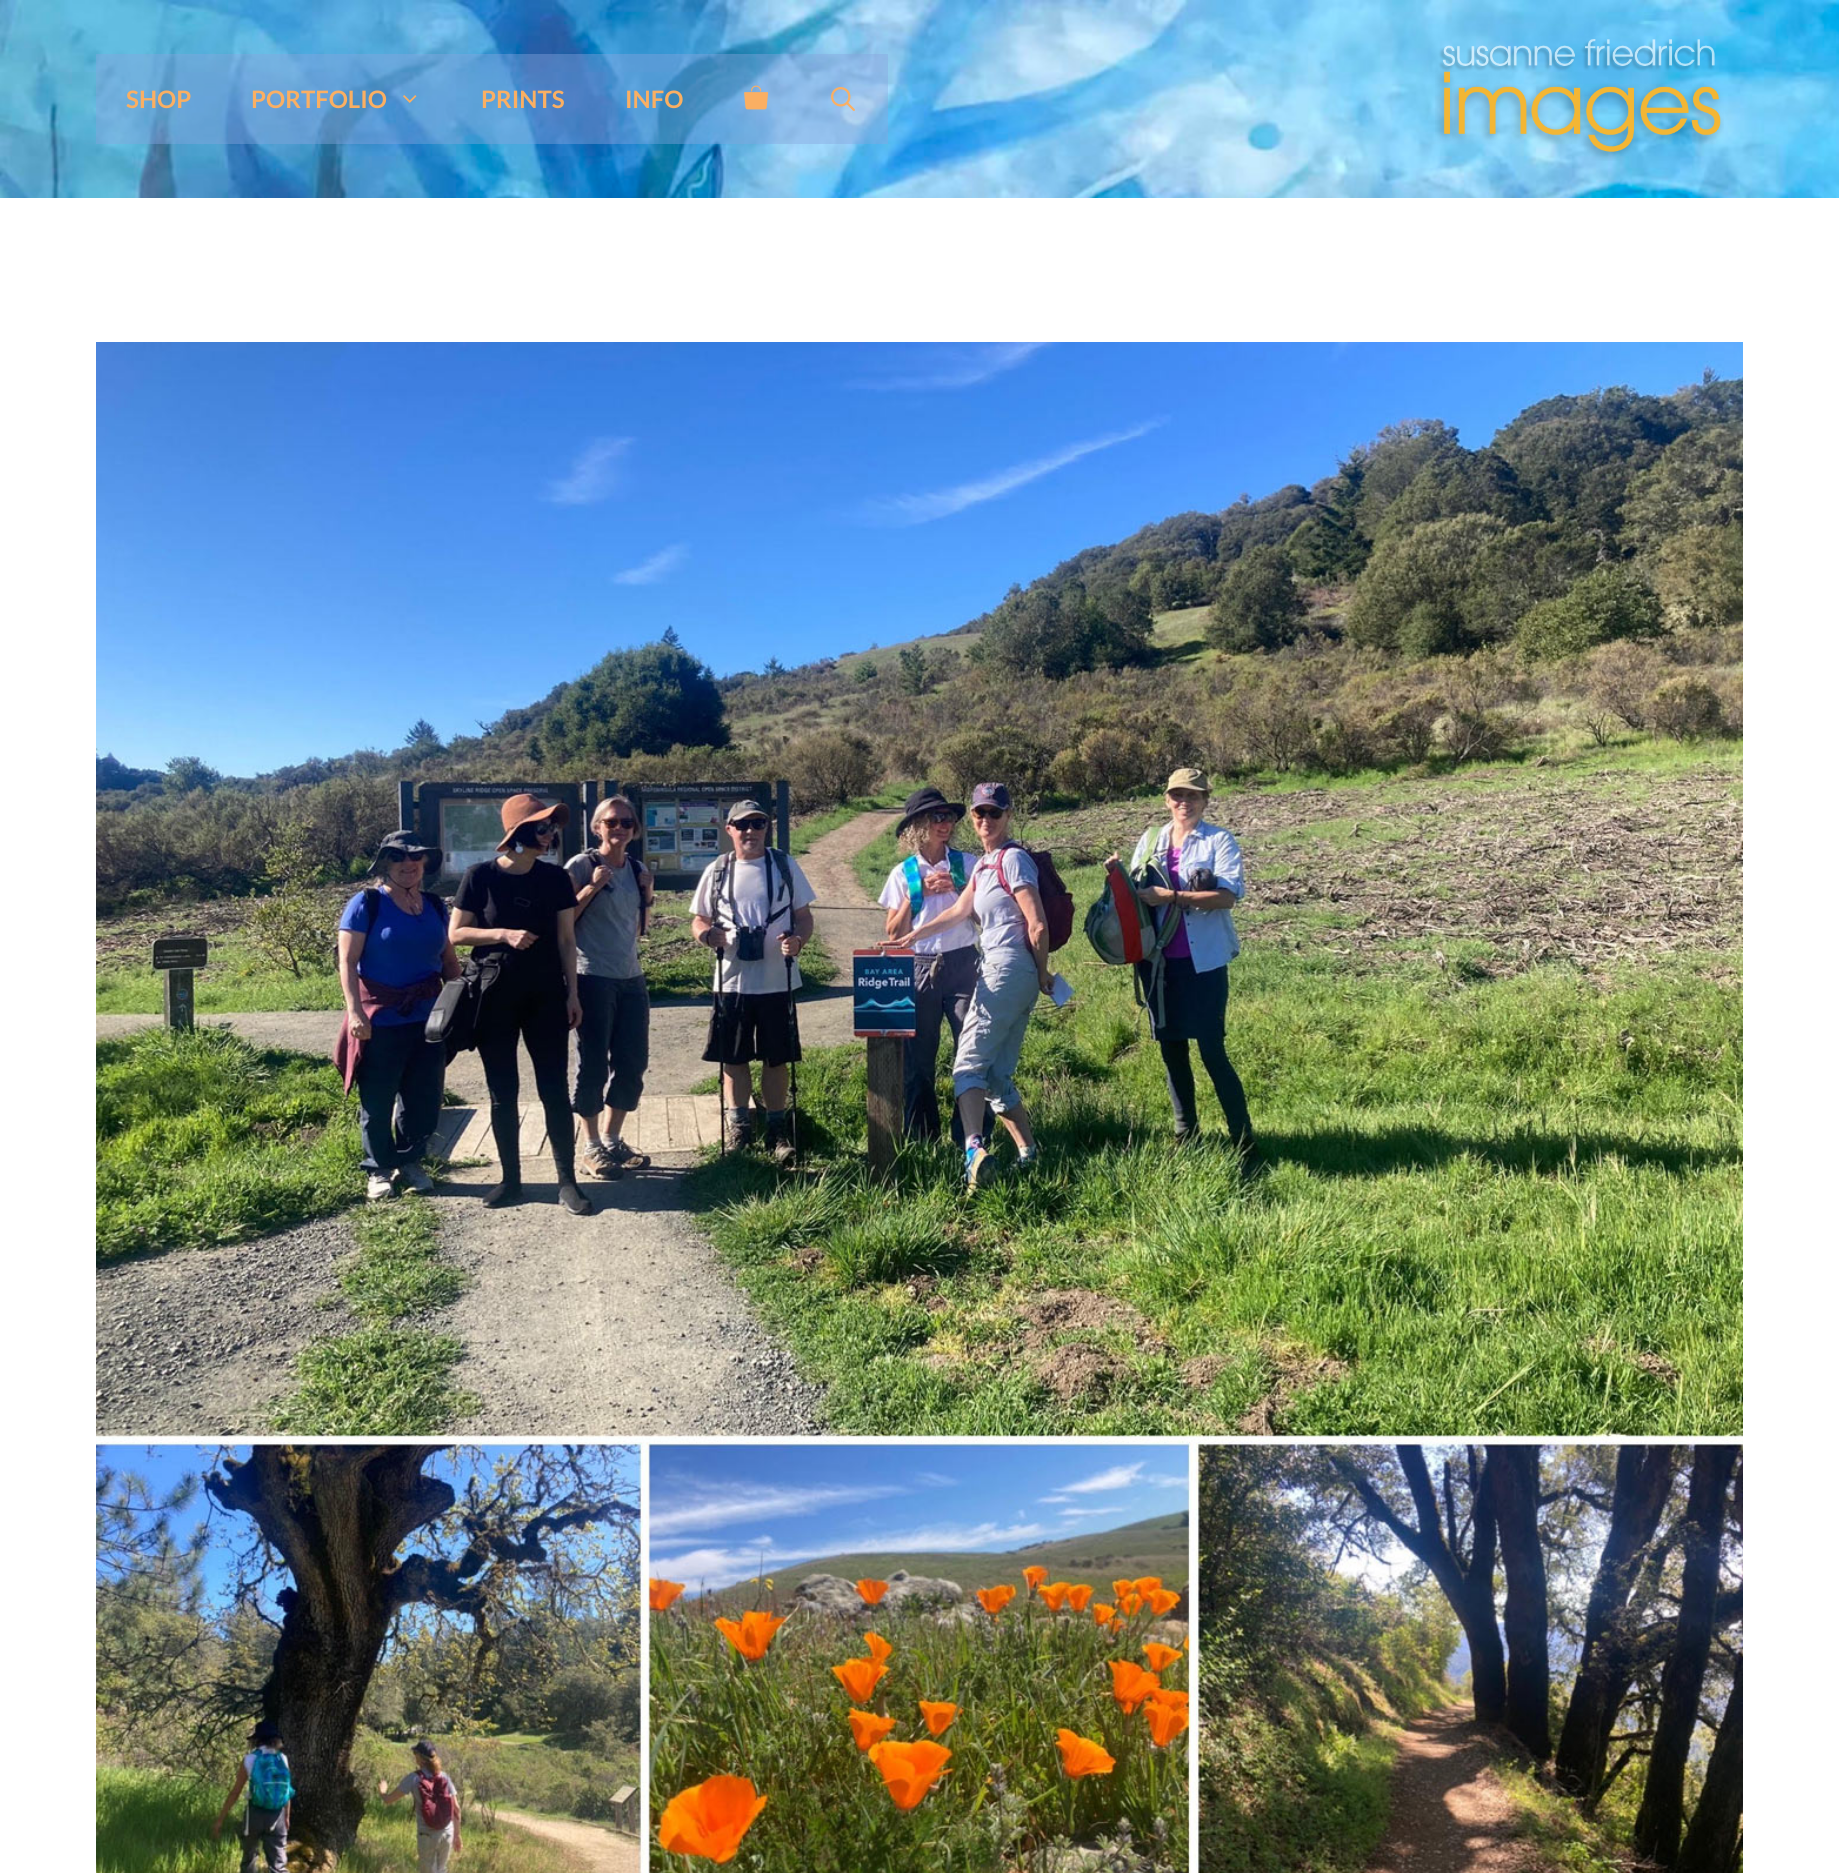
#include <cairo.h>
#include <math.h>
#include <stddef.h>


static void picture(cairo_t *cr, const char *path, double x, double y, double w, double h) {
    cairo_surface_t *image = cairo_image_surface_create_from_png(path);
    cairo_save(cr);
    cairo_set_source_surface(cr, image, x, y);
    cairo_rectangle(cr, x, y, w, h);
    cairo_fill(cr);
    cairo_restore(cr);
    cairo_surface_destroy(image);
}

int main(void) {
    cairo_surface_t *surface = cairo_image_surface_create(CAIRO_FORMAT_RGB24, 1839, 1873);
    cairo_t *cr = cairo_create(surface);
    cairo_font_options_t *options = cairo_font_options_create();
    cairo_font_options_set_hint_metrics(options, CAIRO_HINT_METRICS_OFF);
    cairo_font_options_set_hint_style(options, CAIRO_HINT_STYLE_NONE);
    cairo_set_font_options(cr, options);
    cairo_set_miter_limit(cr, 4);
    cairo_set_source_rgb(cr, 1, 1, 1);
    cairo_paint(cr);
    picture(cr, "img1.png", 0, 0, 1839, 198);
    cairo_set_source_rgba(cr, 0.537, 0.647, 0.867, 0.42);
    cairo_rectangle(cr, 96, 54, 792, 90);
    cairo_fill(cr);
    cairo_select_font_face(cr, "Lato", CAIRO_FONT_SLANT_NORMAL, CAIRO_FONT_WEIGHT_BOLD);
    cairo_set_font_size(cr, 24);
    cairo_set_source_rgb(cr, 0.98, 0.686, 0.388);
    cairo_move_to(cr, 126, 108);
    cairo_show_text(cr, "SHOP");
    cairo_move_to(cr, 251, 108);
    cairo_show_text(cr, "PORTFOLIO");
    picture(cr, "img2.png", 403, 95, 14, 8);
    cairo_move_to(cr, 481, 108);
    cairo_show_text(cr, "PRINTS");
    cairo_move_to(cr, 625, 108);
    cairo_show_text(cr, "INFO");
    picture(cr, "img3.png", 744, 85, 25, 25);
    picture(cr, "img4.png", 831, 87, 24, 24);
    picture(cr, "img5.png", 1435, 39, 289, 122);
    picture(cr, "img6.png", 96, 342, 1647, 1531);
    cairo_surface_write_to_png(surface, "page.png");
    cairo_font_options_destroy(options);
    cairo_destroy(cr);
    cairo_surface_destroy(surface);
    return 0;
}
